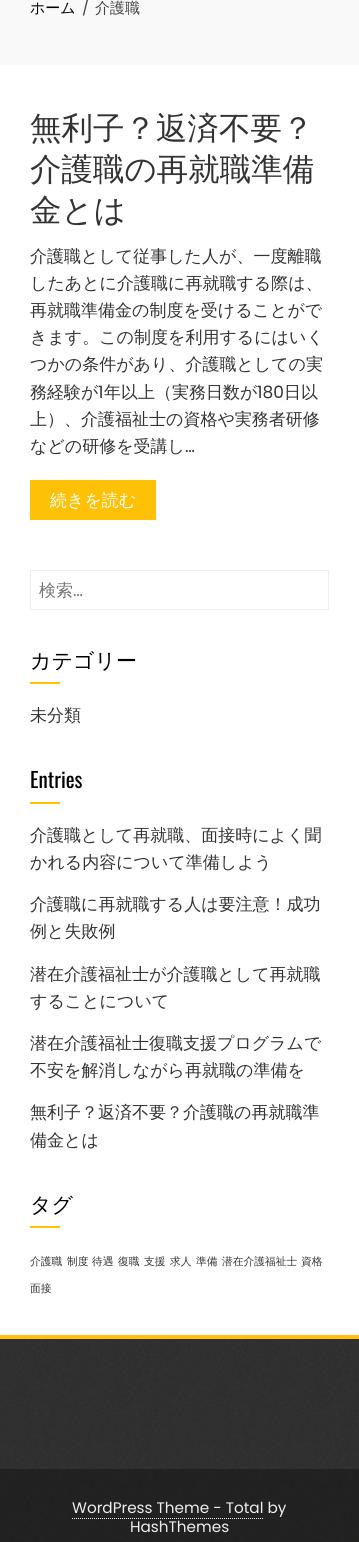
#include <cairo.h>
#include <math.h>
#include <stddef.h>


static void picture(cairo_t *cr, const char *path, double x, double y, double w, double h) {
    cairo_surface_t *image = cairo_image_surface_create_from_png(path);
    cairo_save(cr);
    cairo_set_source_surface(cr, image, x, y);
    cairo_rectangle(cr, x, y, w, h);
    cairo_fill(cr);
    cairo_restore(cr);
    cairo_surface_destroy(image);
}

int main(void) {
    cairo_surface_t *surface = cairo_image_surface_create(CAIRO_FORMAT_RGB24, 359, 1542);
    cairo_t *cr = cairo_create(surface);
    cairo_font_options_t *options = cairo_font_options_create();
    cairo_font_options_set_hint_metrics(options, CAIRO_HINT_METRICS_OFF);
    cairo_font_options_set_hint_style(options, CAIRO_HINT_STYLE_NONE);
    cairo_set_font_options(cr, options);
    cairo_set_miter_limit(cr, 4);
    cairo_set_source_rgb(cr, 1, 1, 1);
    cairo_paint(cr);
    cairo_set_source_rgb(cr, 0.976, 0.976, 0.976);
    cairo_rectangle(cr, 0, 0, 359, 65);
    cairo_fill(cr);
    cairo_select_font_face(cr, "WenQuanYi Zen Hei Medium", CAIRO_FONT_SLANT_NORMAL, CAIRO_FONT_WEIGHT_NORMAL);
    cairo_set_font_size(cr, 15);
    cairo_set_source_rgb(cr, 0, 0, 0);
    cairo_move_to(cr, 30, 13);
    cairo_show_text(cr, "ホーム");
    cairo_select_font_face(cr, "Poppins", CAIRO_FONT_SLANT_NORMAL, CAIRO_FONT_WEIGHT_NORMAL);
    cairo_set_source_rgb(cr, 0.267, 0.267, 0.267);
    cairo_move_to(cr, 82, 13);
    cairo_show_text(cr, "/");
    cairo_select_font_face(cr, "WenQuanYi Zen Hei Medium", CAIRO_FONT_SLANT_NORMAL, CAIRO_FONT_WEIGHT_NORMAL);
    cairo_move_to(cr, 95, 13);
    cairo_show_text(cr, "介護職");
    cairo_set_font_size(cr, 31.5);
    cairo_set_source_rgb(cr, 0.2, 0.2, 0.2);
    cairo_move_to(cr, 30, 139);
    cairo_show_text(cr, "無利子？返済不要？");
    cairo_move_to(cr, 30, 180);
    cairo_show_text(cr, "介護職の再就職準備");
    cairo_move_to(cr, 30, 221);
    cairo_show_text(cr, "金とは");
    cairo_set_font_size(cr, 17);
    cairo_move_to(cr, 30, 262);
    cairo_show_text(cr, "介護職として従事した人が、一度離職");
    cairo_move_to(cr, 30, 289);
    cairo_show_text(cr, "したあとに介護職に再就職する際は、");
    cairo_move_to(cr, 30, 316);
    cairo_show_text(cr, "再就職準備金の制度を受けることがで");
    cairo_move_to(cr, 30, 343);
    cairo_show_text(cr, "きます。この制度を利用するにはいく");
    cairo_move_to(cr, 30, 370);
    cairo_show_text(cr, "つかの条件があり、介護職としての実");
    cairo_move_to(cr, 30, 398);
    cairo_show_text(cr, "務経験が");
    cairo_select_font_face(cr, "Poppins", CAIRO_FONT_SLANT_NORMAL, CAIRO_FONT_WEIGHT_NORMAL);
    cairo_move_to(cr, 98, 398);
    cairo_show_text(cr, "1");
    cairo_select_font_face(cr, "WenQuanYi Zen Hei Medium", CAIRO_FONT_SLANT_NORMAL, CAIRO_FONT_WEIGHT_NORMAL);
    cairo_move_to(cr, 104, 398);
    cairo_show_text(cr, "年以上（実務日数が");
    cairo_select_font_face(cr, "Poppins", CAIRO_FONT_SLANT_NORMAL, CAIRO_FONT_WEIGHT_NORMAL);
    cairo_move_to(cr, 257, 398);
    cairo_show_text(cr, "180");
    cairo_select_font_face(cr, "WenQuanYi Zen Hei Medium", CAIRO_FONT_SLANT_NORMAL, CAIRO_FONT_WEIGHT_NORMAL);
    cairo_move_to(cr, 284, 398);
    cairo_show_text(cr, "日以");
    cairo_move_to(cr, 30, 425);
    cairo_show_text(cr, "上）、介護福祉士の資格や実務者研修");
    cairo_move_to(cr, 30, 452);
    cairo_show_text(cr, "などの研修を受講し");
    cairo_select_font_face(cr, "Poppins", CAIRO_FONT_SLANT_NORMAL, CAIRO_FONT_WEIGHT_NORMAL);
    cairo_move_to(cr, 185, 452);
    cairo_show_text(cr, "…");
    cairo_set_source_rgb(cr, 1, 0.757, 0.027);
    cairo_rectangle(cr, 30, 480, 126, 40);
    cairo_fill(cr);
    cairo_select_font_face(cr, "WenQuanYi Zen Hei Medium", CAIRO_FONT_SLANT_NORMAL, CAIRO_FONT_WEIGHT_NORMAL);
    cairo_set_source_rgb(cr, 1, 1, 1);
    cairo_move_to(cr, 50, 506);
    cairo_show_text(cr, "続きを読む");
    cairo_rectangle(cr, 30.5, 570.5, 298, 39);
    cairo_set_source_rgb(cr, 0.933, 0.933, 0.933);
    cairo_set_line_width(cr, 1);
    cairo_stroke(cr);
    cairo_set_source_rgb(cr, 0.459, 0.459, 0.459);
    cairo_move_to(cr, 39, 596);
    cairo_show_text(cr, "検索");
    cairo_select_font_face(cr, "Poppins", CAIRO_FONT_SLANT_NORMAL, CAIRO_FONT_WEIGHT_NORMAL);
    cairo_move_to(cr, 73, 596);
    cairo_show_text(cr, "…");
    cairo_select_font_face(cr, "WenQuanYi Zen Hei Medium", CAIRO_FONT_SLANT_NORMAL, CAIRO_FONT_WEIGHT_NORMAL);
    cairo_set_font_size(cr, 21);
    cairo_set_source_rgb(cr, 0, 0, 0);
    cairo_move_to(cr, 30, 668);
    cairo_show_text(cr, "カテゴリー");
    cairo_set_source_rgb(cr, 1, 0.757, 0.027);
    cairo_rectangle(cr, 30, 682, 30, 2);
    cairo_fill(cr);
    cairo_set_font_size(cr, 17);
    cairo_set_source_rgb(cr, 0.2, 0.2, 0.2);
    cairo_move_to(cr, 30, 721);
    cairo_show_text(cr, "未分類");
    cairo_select_font_face(cr, "Oswald", CAIRO_FONT_SLANT_NORMAL, CAIRO_FONT_WEIGHT_NORMAL);
    cairo_set_font_size(cr, 21);
    cairo_set_source_rgb(cr, 0, 0, 0);
    cairo_move_to(cr, 30, 788);
    cairo_show_text(cr, "Entries");
    cairo_set_source_rgb(cr, 1, 0.757, 0.027);
    cairo_rectangle(cr, 30, 802, 30, 2);
    cairo_fill(cr);
    cairo_select_font_face(cr, "WenQuanYi Zen Hei Medium", CAIRO_FONT_SLANT_NORMAL, CAIRO_FONT_WEIGHT_NORMAL);
    cairo_set_font_size(cr, 17);
    cairo_set_source_rgb(cr, 0.2, 0.2, 0.2);
    cairo_move_to(cr, 30, 841);
    cairo_show_text(cr, "介護職として再就職、面接時によく聞");
    cairo_move_to(cr, 30, 868);
    cairo_show_text(cr, "かれる内容について準備しよう");
    cairo_move_to(cr, 30, 910);
    cairo_show_text(cr, "介護職に再就職する人は要注意！成功");
    cairo_move_to(cr, 30, 937);
    cairo_show_text(cr, "例と失敗例");
    cairo_move_to(cr, 30, 980);
    cairo_show_text(cr, "潜在介護福祉士が介護職として再就職");
    cairo_move_to(cr, 30, 1007);
    cairo_show_text(cr, "することについて");
    cairo_move_to(cr, 30, 1049);
    cairo_show_text(cr, "潜在介護福祉士復職支援プログラムで");
    cairo_move_to(cr, 30, 1076);
    cairo_show_text(cr, "不安を解消しながら再就職の準備を");
    cairo_move_to(cr, 30, 1118);
    cairo_show_text(cr, "無利子？返済不要？介護職の再就職準");
    cairo_move_to(cr, 30, 1146);
    cairo_show_text(cr, "備金とは");
    cairo_set_font_size(cr, 21);
    cairo_set_source_rgb(cr, 0, 0, 0);
    cairo_move_to(cr, 30, 1212);
    cairo_show_text(cr, "タグ");
    cairo_set_source_rgb(cr, 1, 0.757, 0.027);
    cairo_rectangle(cr, 30, 1226, 30, 2);
    cairo_fill(cr);
    cairo_set_font_size(cr, 10.75);
    cairo_set_source_rgb(cr, 0.2, 0.2, 0.2);
    cairo_move_to(cr, 30, 1265);
    cairo_show_text(cr, "介護職");
    cairo_move_to(cr, 67, 1265);
    cairo_show_text(cr, "制度");
    cairo_move_to(cr, 92, 1265);
    cairo_show_text(cr, "待遇");
    cairo_move_to(cr, 118, 1265);
    cairo_show_text(cr, "復職");
    cairo_move_to(cr, 144, 1265);
    cairo_show_text(cr, "支援");
    cairo_move_to(cr, 170, 1265);
    cairo_show_text(cr, "求人");
    cairo_move_to(cr, 196, 1265);
    cairo_show_text(cr, "準備");
    cairo_move_to(cr, 222, 1265);
    cairo_show_text(cr, "潜在介護福祉士");
    cairo_move_to(cr, 301, 1265);
    cairo_show_text(cr, "資格");
    cairo_move_to(cr, 30, 1292);
    cairo_show_text(cr, "面接");
    picture(cr, "img1.png", 0, 1339, 359, 203);
    cairo_set_source_rgb(cr, 1, 0.757, 0.027);
    cairo_rectangle(cr, 0, 1335, 359, 4);
    cairo_fill(cr);
    cairo_set_source_rgba(cr, 0, 0, 0, 0.3);
    cairo_rectangle(cr, 0, 1469, 359, 73);
    cairo_fill(cr);
    cairo_select_font_face(cr, "Poppins", CAIRO_FONT_SLANT_NORMAL, CAIRO_FONT_WEIGHT_NORMAL);
    cairo_set_font_size(cr, 15.25);
    cairo_set_source_rgb(cr, 0.933, 0.933, 0.933);
    cairo_move_to(cr, 72, 1513);
    cairo_show_text(cr, "WordPress Theme - Total by");
    cairo_new_path(cr);
    cairo_move_to(cr, 72, 1518.5);
    cairo_line_to(cr, 264, 1518.5);
    cairo_set_dash(cr, (double[]){1, 1}, 2, 0);
    cairo_stroke(cr);
    cairo_move_to(cr, 130, 1532);
    cairo_show_text(cr, "HashThemes");
    cairo_surface_write_to_png(surface, "page.png");
    cairo_font_options_destroy(options);
    cairo_destroy(cr);
    cairo_surface_destroy(surface);
    return 0;
}
